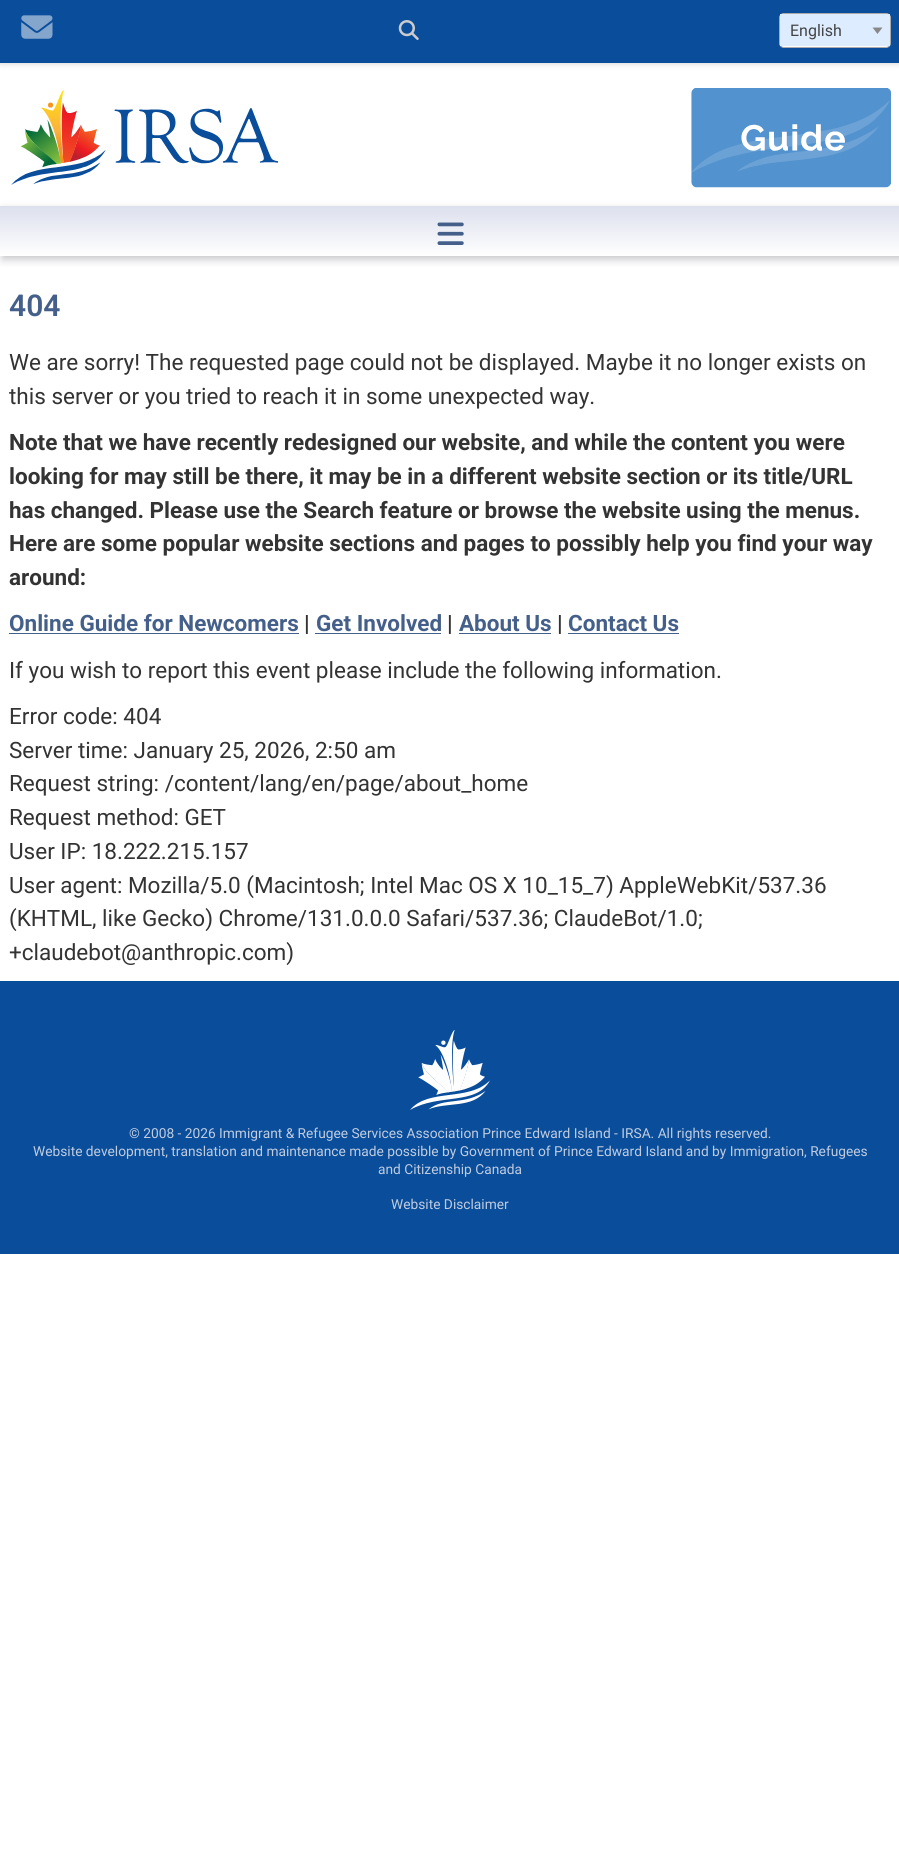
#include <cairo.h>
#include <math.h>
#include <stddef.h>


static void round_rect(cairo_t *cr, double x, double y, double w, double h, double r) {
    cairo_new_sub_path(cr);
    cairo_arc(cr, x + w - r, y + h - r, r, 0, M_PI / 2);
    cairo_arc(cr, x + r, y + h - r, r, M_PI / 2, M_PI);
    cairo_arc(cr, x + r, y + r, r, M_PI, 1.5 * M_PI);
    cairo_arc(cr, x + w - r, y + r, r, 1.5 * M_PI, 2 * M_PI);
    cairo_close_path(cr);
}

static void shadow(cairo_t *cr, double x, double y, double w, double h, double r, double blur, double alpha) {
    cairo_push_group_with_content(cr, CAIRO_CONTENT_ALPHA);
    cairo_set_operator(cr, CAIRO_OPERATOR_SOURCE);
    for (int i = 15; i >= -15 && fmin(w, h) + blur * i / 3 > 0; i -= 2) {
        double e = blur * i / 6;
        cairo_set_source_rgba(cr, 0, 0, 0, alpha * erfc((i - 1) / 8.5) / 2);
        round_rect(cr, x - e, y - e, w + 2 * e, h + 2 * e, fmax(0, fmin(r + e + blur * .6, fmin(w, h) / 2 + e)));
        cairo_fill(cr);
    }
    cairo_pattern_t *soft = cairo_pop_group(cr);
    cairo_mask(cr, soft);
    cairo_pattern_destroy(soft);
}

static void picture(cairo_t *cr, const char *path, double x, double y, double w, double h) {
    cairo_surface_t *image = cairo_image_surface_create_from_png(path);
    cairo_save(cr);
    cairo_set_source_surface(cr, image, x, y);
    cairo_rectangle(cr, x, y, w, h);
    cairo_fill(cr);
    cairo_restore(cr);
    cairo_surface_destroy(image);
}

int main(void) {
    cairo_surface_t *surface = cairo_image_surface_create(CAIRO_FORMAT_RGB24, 899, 1850);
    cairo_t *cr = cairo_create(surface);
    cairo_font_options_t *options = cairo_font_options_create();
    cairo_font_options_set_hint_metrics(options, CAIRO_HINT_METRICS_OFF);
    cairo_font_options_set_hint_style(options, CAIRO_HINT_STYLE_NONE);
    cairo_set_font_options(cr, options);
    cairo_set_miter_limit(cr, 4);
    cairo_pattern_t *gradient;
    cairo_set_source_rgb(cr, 1, 1, 1);
    cairo_paint(cr);
    cairo_set_source_rgb(cr, 0, 0, 0);
    shadow(cr, 0, 1, 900, 63, 0, 3, 0.15);
    cairo_set_source_rgb(cr, 0.039, 0.302, 0.608);
    cairo_rectangle(cr, 0, 0, 899, 63);
    cairo_fill(cr);
    picture(cr, "img1.png", 21, 15, 32, 24);
    picture(cr, "img2.png", 398, 20, 21, 20);
    cairo_set_source_rgb(cr, 1, 1, 1);
    round_rect(cr, 779.5, 13.5, 111, 34, 4.5);
    cairo_fill_preserve(cr);
    cairo_set_source_rgb(cr, 0.667, 0.667, 0.667);
    cairo_set_line_width(cr, 1);
    cairo_stroke(cr);
    cairo_set_source_rgb(cr, 0.867, 0.922, 1);
    cairo_rectangle(cr, 780, 14, 110, 32);
    cairo_fill(cr);
    cairo_select_font_face(cr, "Roboto", CAIRO_FONT_SLANT_NORMAL, CAIRO_FONT_WEIGHT_NORMAL);
    cairo_set_font_size(cr, 16);
    cairo_set_source_rgb(cr, 0.267, 0.267, 0.267);
    cairo_move_to(cr, 790, 36);
    cairo_show_text(cr, "English");
    cairo_set_source_rgb(cr, 0.533, 0.533, 0.533);
    cairo_new_path(cr);
    cairo_move_to(cr, 872.5, 27.5);
    cairo_line_to(cr, 882.5, 27.5);
    cairo_line_to(cr, 877.5, 34);
    cairo_close_path(cr);
    cairo_fill(cr);
    picture(cr, "img3.png", 11, 90, 268, 95);
    picture(cr, "img4.png", 691, 88, 200, 100);
    gradient = cairo_pattern_create_linear(450, 206, 450, 271);
    cairo_pattern_add_color_stop_rgba(gradient, 0, 0.863, 0.875, 0.929, 1);
    cairo_pattern_add_color_stop_rgba(gradient, 1, 1, 1, 1, 1);
    cairo_set_source(cr, gradient);
    cairo_pattern_destroy(gradient);
    cairo_rectangle(cr, 0, 256, 899, 10);
    cairo_fill(cr);
    cairo_set_source_rgb(cr, 0, 0, 0);
    shadow(cr, 3, 209, 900, 50, 0, 4, 0.2);
    gradient = cairo_pattern_create_linear(450, 206, 450, 256);
    cairo_pattern_add_color_stop_rgba(gradient, 0, 0.863, 0.875, 0.929, 1);
    cairo_pattern_add_color_stop_rgba(gradient, 1, 1, 1, 1, 1);
    cairo_set_source(cr, gradient);
    cairo_pattern_destroy(gradient);
    cairo_rectangle(cr, 0, 206, 899, 50);
    cairo_fill(cr);
    picture(cr, "img5.png", 437, 222, 27, 23);
    cairo_select_font_face(cr, "Roboto SemiBold", CAIRO_FONT_SLANT_NORMAL, CAIRO_FONT_WEIGHT_NORMAL);
    cairo_set_font_size(cr, 30);
    cairo_set_source_rgb(cr, 0.267, 0.376, 0.541);
    cairo_move_to(cr, 9, 316);
    cairo_show_text(cr, "404");
    cairo_select_font_face(cr, "Roboto", CAIRO_FONT_SLANT_NORMAL, CAIRO_FONT_WEIGHT_NORMAL);
    cairo_set_font_size(cr, 22.5);
    cairo_set_source_rgb(cr, 0.2, 0.2, 0.2);
    cairo_move_to(cr, 9, 370);
    cairo_show_text(cr, "We are sorry! The requested page could not be displayed. Maybe it no longer exists on");
    cairo_move_to(cr, 9, 404);
    cairo_show_text(cr, "this server or you tried to reach it in some unexpected way.");
    cairo_select_font_face(cr, "Roboto", CAIRO_FONT_SLANT_NORMAL, CAIRO_FONT_WEIGHT_BOLD);
    cairo_move_to(cr, 9, 450);
    cairo_show_text(cr, "Note that we have recently redesigned our website, and while the content you were");
    cairo_move_to(cr, 9, 484);
    cairo_show_text(cr, "looking for may still be there, it may be in a different website section or its title/URL");
    cairo_move_to(cr, 9, 518);
    cairo_show_text(cr, "has changed. Please use the Search feature or browse the website using the menus.");
    cairo_move_to(cr, 9, 551);
    cairo_show_text(cr, "Here are some popular website sections and pages to possibly help you find your way");
    cairo_move_to(cr, 9, 585);
    cairo_show_text(cr, "around:");
    cairo_set_source_rgb(cr, 0.267, 0.376, 0.541);
    cairo_move_to(cr, 9, 631);
    cairo_show_text(cr, "Online Guide for Newcomers");
    cairo_rectangle(cr, 9, 633, 290, 1);
    cairo_fill(cr);
    cairo_set_source_rgb(cr, 0.2, 0.2, 0.2);
    cairo_move_to(cr, 304, 631);
    cairo_show_text(cr, "|");
    cairo_set_source_rgb(cr, 0.267, 0.376, 0.541);
    cairo_move_to(cr, 316, 631);
    cairo_show_text(cr, "Get Involved");
    cairo_rectangle(cr, 315, 633, 126, 1);
    cairo_fill(cr);
    cairo_set_source_rgb(cr, 0.2, 0.2, 0.2);
    cairo_move_to(cr, 447, 631);
    cairo_show_text(cr, "|");
    cairo_set_source_rgb(cr, 0.267, 0.376, 0.541);
    cairo_move_to(cr, 459, 631);
    cairo_show_text(cr, "About Us");
    cairo_rectangle(cr, 459, 633, 92, 1);
    cairo_fill(cr);
    cairo_set_source_rgb(cr, 0.2, 0.2, 0.2);
    cairo_move_to(cr, 557, 631);
    cairo_show_text(cr, "|");
    cairo_set_source_rgb(cr, 0.267, 0.376, 0.541);
    cairo_move_to(cr, 568, 631);
    cairo_show_text(cr, "Contact Us");
    cairo_rectangle(cr, 568, 633, 111, 1);
    cairo_fill(cr);
    cairo_select_font_face(cr, "Roboto", CAIRO_FONT_SLANT_NORMAL, CAIRO_FONT_WEIGHT_NORMAL);
    cairo_set_source_rgb(cr, 0.2, 0.2, 0.2);
    cairo_move_to(cr, 9, 678);
    cairo_show_text(cr, "If you wish to report this event please include the following information.");
    cairo_move_to(cr, 9, 724);
    cairo_show_text(cr, "Error code: 404");
    cairo_move_to(cr, 9, 758);
    cairo_show_text(cr, "Server time: January 25, 2026, 2:50 am");
    cairo_move_to(cr, 9, 791);
    cairo_show_text(cr, "Request string: /content/lang/en/page/about_home");
    cairo_move_to(cr, 9, 825);
    cairo_show_text(cr, "Request method: GET");
    cairo_move_to(cr, 9, 859);
    cairo_show_text(cr, "User IP: 18.222.215.157");
    cairo_move_to(cr, 9, 893);
    cairo_show_text(cr, "User agent: Mozilla/5.0 (Macintosh; Intel Mac OS X 10_15_7) AppleWebKit/537.36");
    cairo_move_to(cr, 9, 926);
    cairo_show_text(cr, "(KHTML, like Gecko) Chrome/131.0.0.0 Safari/537.36; ClaudeBot/1.0;");
    cairo_move_to(cr, 9, 960);
    cairo_show_text(cr, "+claudebot@anthropic.com)");
    cairo_set_source_rgb(cr, 0.039, 0.302, 0.608);
    cairo_rectangle(cr, 0, 981, 899, 273);
    cairo_fill(cr);
    picture(cr, "img6.png", 410, 1030, 80, 80);
    cairo_set_font_size(cr, 13.75);
    cairo_set_source_rgb(cr, 0.749, 0.8, 0.878);
    cairo_move_to(cr, 129, 1138);
    cairo_show_text(cr, "© 2008 - 2026 Immigrant & Refugee Services Association Prince Edward Island - IRSA. All rights reserved.");
    cairo_move_to(cr, 33, 1156);
    cairo_show_text(cr, "Website development, translation and maintenance made possible by Government of Prince Edward Island and by Immigration, Refugees");
    cairo_move_to(cr, 378, 1174);
    cairo_show_text(cr, "and Citizenship Canada");
    cairo_move_to(cr, 391, 1209);
    cairo_show_text(cr, "Website Disclaimer");
    cairo_surface_write_to_png(surface, "page.png");
    cairo_font_options_destroy(options);
    cairo_destroy(cr);
    cairo_surface_destroy(surface);
    return 0;
}
